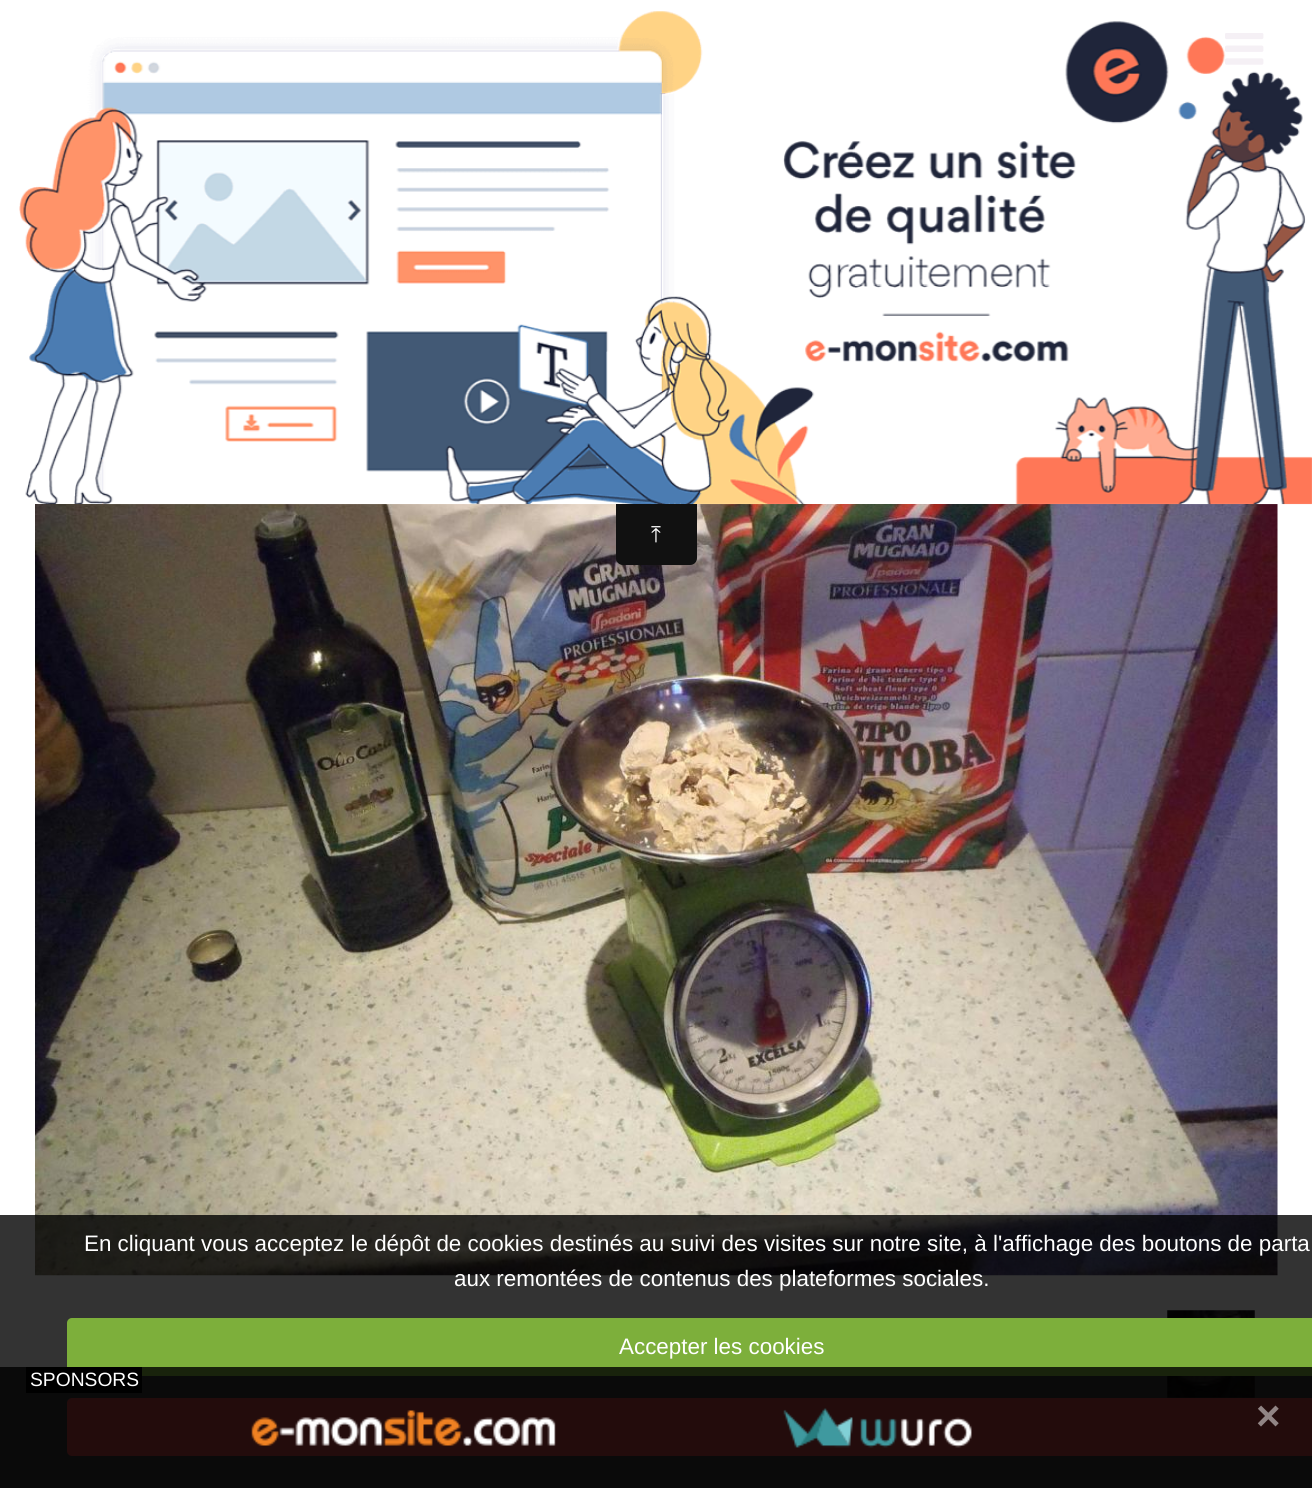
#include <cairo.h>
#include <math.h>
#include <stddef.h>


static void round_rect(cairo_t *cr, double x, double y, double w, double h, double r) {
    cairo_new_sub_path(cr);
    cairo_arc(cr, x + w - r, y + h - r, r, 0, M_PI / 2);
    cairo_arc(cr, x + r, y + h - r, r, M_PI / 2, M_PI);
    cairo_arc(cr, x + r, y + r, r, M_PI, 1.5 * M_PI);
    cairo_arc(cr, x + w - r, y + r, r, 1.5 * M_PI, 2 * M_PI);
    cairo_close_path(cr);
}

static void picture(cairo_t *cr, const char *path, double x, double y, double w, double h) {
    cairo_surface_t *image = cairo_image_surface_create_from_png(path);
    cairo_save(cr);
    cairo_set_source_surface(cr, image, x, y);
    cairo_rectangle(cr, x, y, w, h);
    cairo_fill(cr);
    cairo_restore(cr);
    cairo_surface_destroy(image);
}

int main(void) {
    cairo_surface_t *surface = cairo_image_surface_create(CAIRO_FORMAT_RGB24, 1312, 1488);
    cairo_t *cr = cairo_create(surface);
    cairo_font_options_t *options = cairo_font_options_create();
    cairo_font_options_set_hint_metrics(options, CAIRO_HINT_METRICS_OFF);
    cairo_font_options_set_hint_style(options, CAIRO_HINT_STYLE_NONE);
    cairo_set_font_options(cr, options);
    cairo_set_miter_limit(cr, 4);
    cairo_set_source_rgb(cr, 1, 1, 1);
    cairo_paint(cr);
    picture(cr, "img2.png", 35, 504, 1243, 772);
    picture(cr, "img4.png", 19, 11, 1293, 494);
    picture(cr, "img1.png", 1225, 33, 39, 32);
    picture(cr, "img3.png", 1167, 1310, 88, 88);
    cairo_set_source_rgb(cr, 0.067, 0.067, 0.067);
    cairo_new_path(cr);
    cairo_move_to(cr, 616, 504);
    cairo_line_to(cr, 697, 504);
    cairo_line_to(cr, 697, 558);
    cairo_curve_to(cr, 697, 562, 694, 565, 690, 565);
    cairo_line_to(cr, 623, 565);
    cairo_curve_to(cr, 619, 565, 616, 562, 616, 558);
    cairo_close_path(cr);
    cairo_fill(cr);
    cairo_select_font_face(cr, "FreeSerif", CAIRO_FONT_SLANT_NORMAL, CAIRO_FONT_WEIGHT_NORMAL);
    cairo_set_font_size(cr, 22.4);
    cairo_set_source_rgb(cr, 1, 1, 1);
    cairo_move_to(cr, 651, 542);
    cairo_show_text(cr, "⤒");
    cairo_set_source_rgba(cr, 0, 0, 0, 0.8);
    cairo_rectangle(cr, 0, 1215, 1312, 273);
    cairo_fill(cr);
    cairo_select_font_face(cr, "Liberation Sans", CAIRO_FONT_SLANT_NORMAL, CAIRO_FONT_WEIGHT_NORMAL);
    cairo_set_source_rgb(cr, 1, 1, 1);
    cairo_move_to(cr, 84, 1251);
    cairo_show_text(cr, "En cliquant vous acceptez le dépôt de cookies destinés au suivi des visites sur notre site, à l'affichage des boutons de parta");
    cairo_move_to(cr, 454, 1286);
    cairo_show_text(cr, "aux remontées de contenus des plateformes sociales.");
    cairo_set_source_rgb(cr, 0.49, 0.686, 0.231);
    round_rect(cr, 67, 1318, 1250, 58, 5);
    cairo_fill(cr);
    cairo_set_source_rgb(cr, 1, 1, 1);
    cairo_move_to(cr, 619, 1354);
    cairo_show_text(cr, "Accepter les cookies");
    cairo_set_source_rgb(cr, 0.686, 0.231, 0.231);
    round_rect(cr, 67, 1398, 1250, 58, 5);
    cairo_fill(cr);
    cairo_set_source_rgba(cr, 0, 0, 0, 0.8);
    cairo_rectangle(cr, 0, 1367, 1312, 121);
    cairo_fill(cr);
    cairo_set_source_rgb(cr, 0, 0, 0);
    cairo_rectangle(cr, 26, 1367, 116, 26);
    cairo_fill(cr);
    cairo_set_font_size(cr, 19.25);
    cairo_set_source_rgb(cr, 1, 1, 1);
    cairo_move_to(cr, 30, 1386);
    cairo_show_text(cr, "SPONSORS");
    picture(cr, "img5.png", 251, 1410, 305, 36);
    picture(cr, "img6.png", 783, 1408, 189, 40);
    cairo_select_font_face(cr, "Liberation Sans", CAIRO_FONT_SLANT_NORMAL, CAIRO_FONT_WEIGHT_BOLD);
    cairo_set_font_size(cr, 42);
    cairo_set_source_rgb(cr, 0.569, 0.522, 0.522);
    cairo_move_to(cr, 1256, 1430);
    cairo_show_text(cr, "×");
    cairo_surface_write_to_png(surface, "page.png");
    cairo_font_options_destroy(options);
    cairo_destroy(cr);
    cairo_surface_destroy(surface);
    return 0;
}
